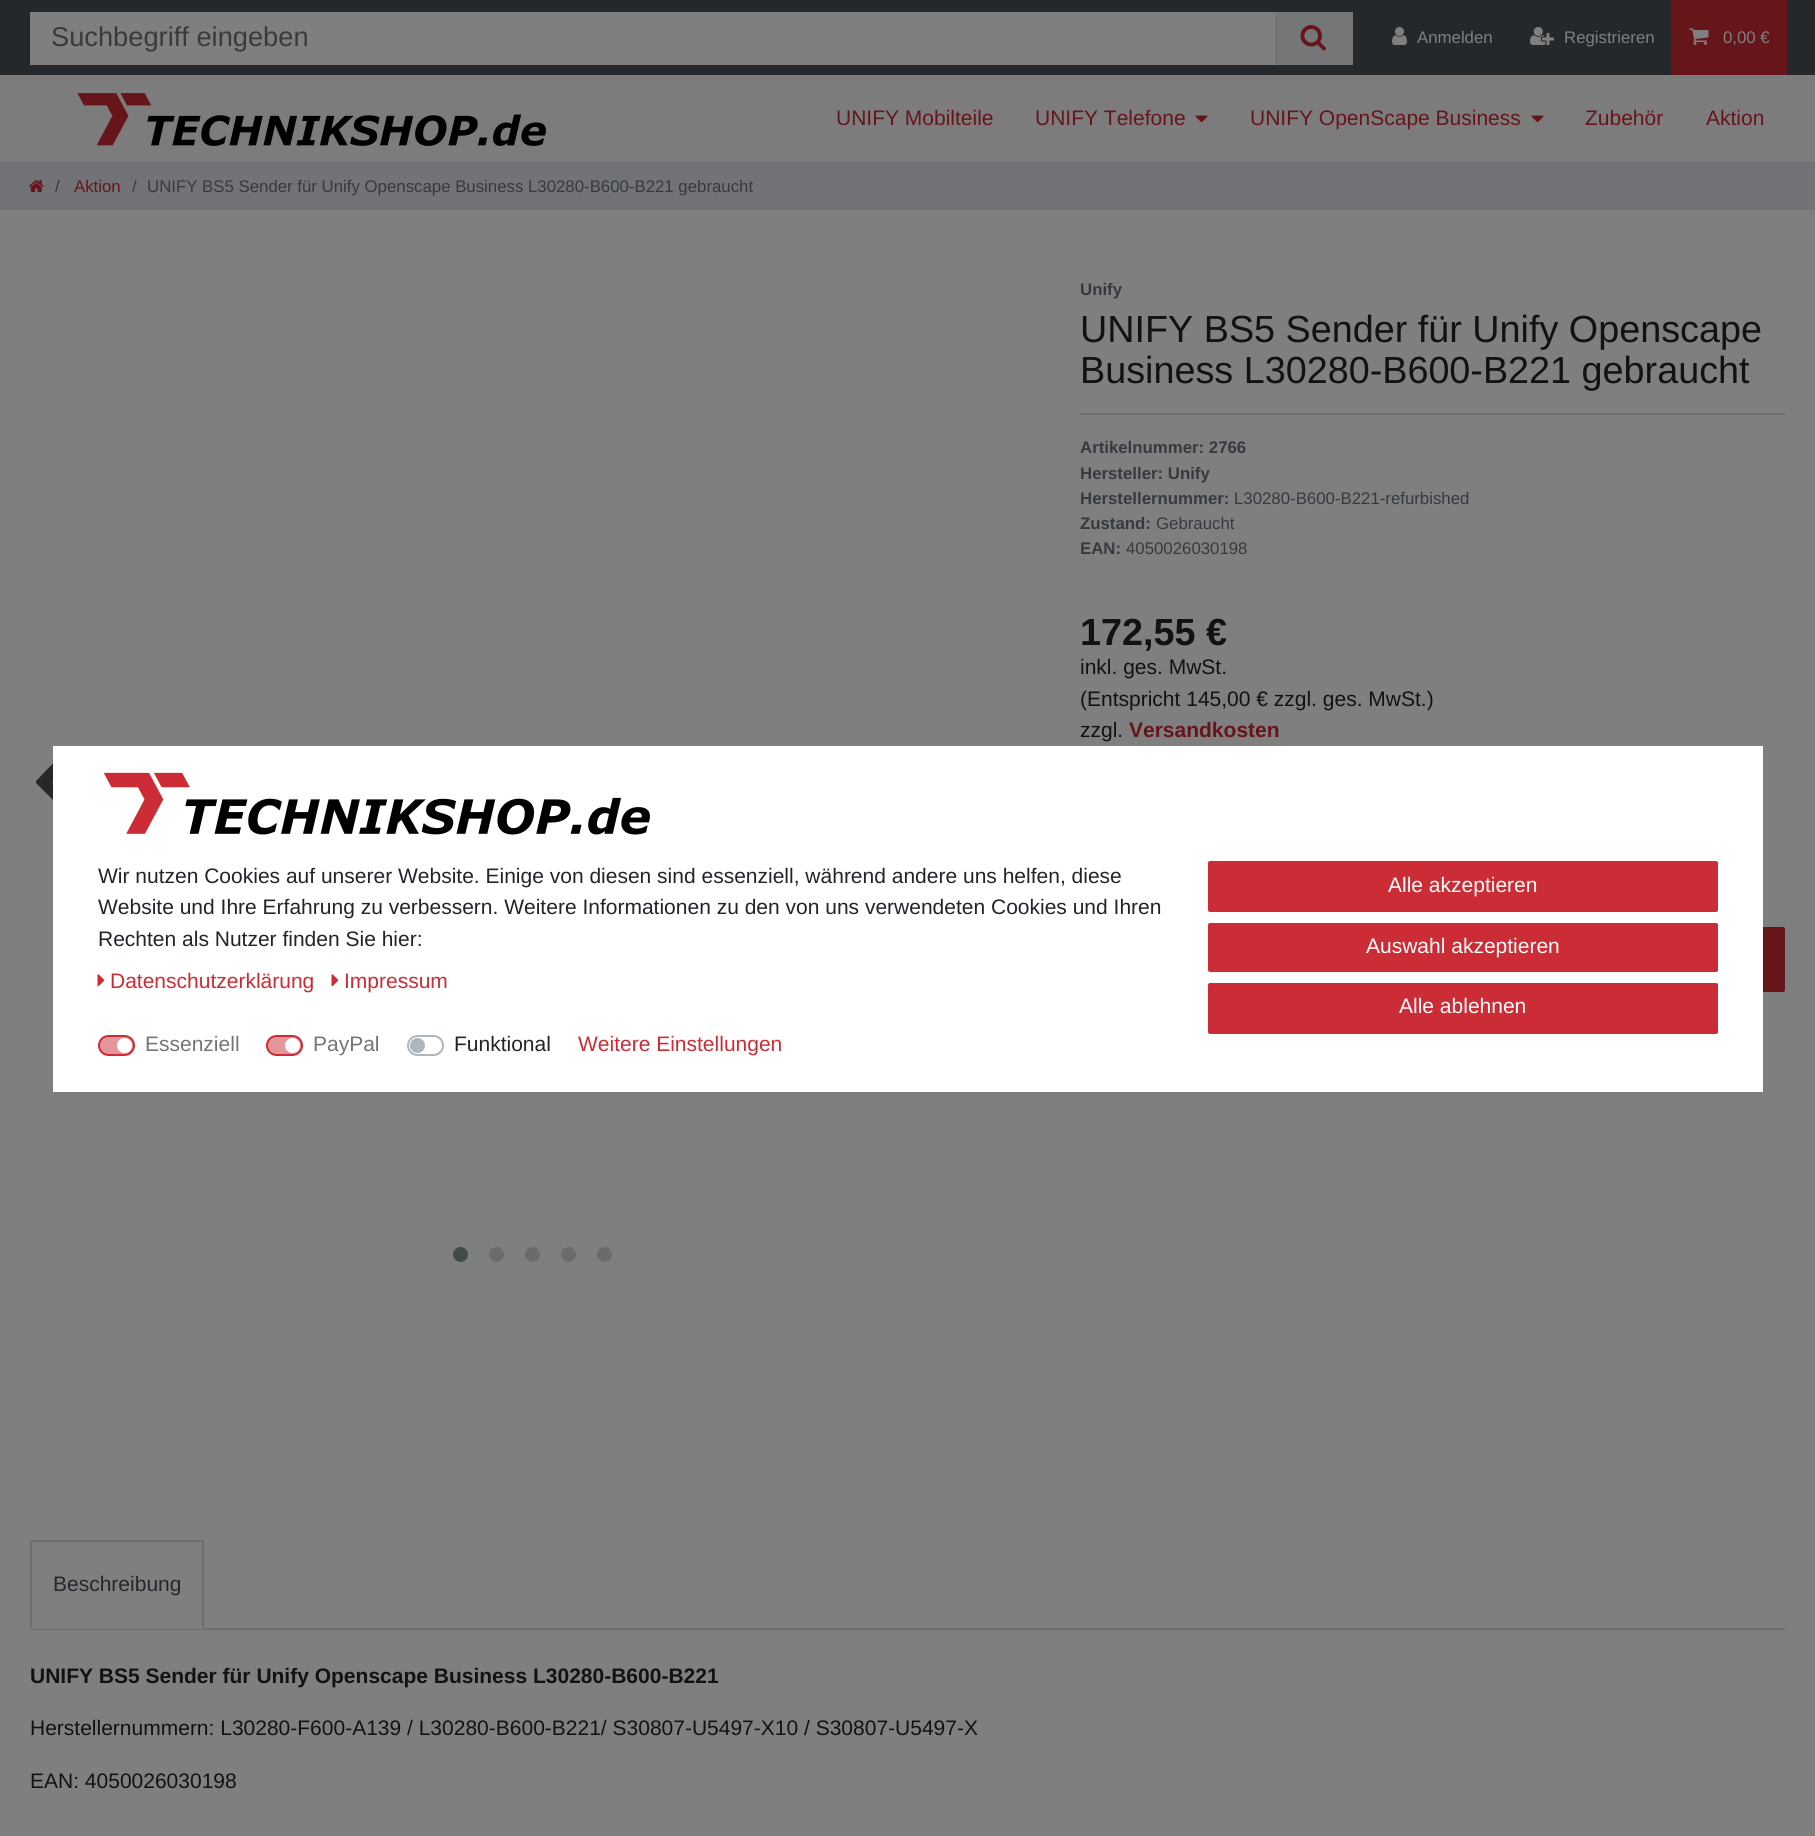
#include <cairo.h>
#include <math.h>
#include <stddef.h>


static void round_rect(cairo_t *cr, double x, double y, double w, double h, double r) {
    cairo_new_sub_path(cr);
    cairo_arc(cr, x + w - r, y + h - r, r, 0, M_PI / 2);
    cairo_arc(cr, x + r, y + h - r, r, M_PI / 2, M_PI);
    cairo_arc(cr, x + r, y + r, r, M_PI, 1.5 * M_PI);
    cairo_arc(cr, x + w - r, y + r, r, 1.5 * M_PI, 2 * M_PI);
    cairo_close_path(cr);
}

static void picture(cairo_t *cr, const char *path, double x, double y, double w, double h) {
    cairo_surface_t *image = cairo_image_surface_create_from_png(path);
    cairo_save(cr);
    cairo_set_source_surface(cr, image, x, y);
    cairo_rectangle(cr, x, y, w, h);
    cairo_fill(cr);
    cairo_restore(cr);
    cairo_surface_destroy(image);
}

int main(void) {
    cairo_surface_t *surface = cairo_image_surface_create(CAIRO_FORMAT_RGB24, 1815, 1836);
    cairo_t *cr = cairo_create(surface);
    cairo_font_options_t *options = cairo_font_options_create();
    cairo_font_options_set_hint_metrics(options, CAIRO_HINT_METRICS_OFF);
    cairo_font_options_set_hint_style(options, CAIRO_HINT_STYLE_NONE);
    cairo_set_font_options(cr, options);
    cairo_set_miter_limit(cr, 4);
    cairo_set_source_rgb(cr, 1, 1, 1);
    cairo_paint(cr);
    cairo_set_source_rgb(cr, 0.286, 0.314, 0.341);
    cairo_rectangle(cr, 0, 0, 1815, 75);
    cairo_fill(cr);
    cairo_set_source_rgb(cr, 1, 1, 1);
    cairo_rectangle(cr, 30, 12, 1245, 53);
    cairo_fill(cr);
    cairo_select_font_face(cr, "Liberation Sans", CAIRO_FONT_SLANT_NORMAL, CAIRO_FONT_WEIGHT_NORMAL);
    cairo_set_font_size(cr, 27.25);
    cairo_set_source_rgb(cr, 0.459, 0.459, 0.459);
    cairo_move_to(cr, 51, 46);
    cairo_show_text(cr, "Suchbegriff eingeben");
    cairo_set_source_rgb(cr, 0.914, 0.925, 0.937);
    cairo_rectangle(cr, 1275, 12, 78, 53);
    cairo_fill(cr);
    picture(cr, "img1.png", 1300, 25, 26, 26);
    picture(cr, "img2.png", 1392, 27, 15, 18);
    cairo_set_font_size(cr, 16.8);
    cairo_set_source_rgb(cr, 1, 1, 1);
    cairo_move_to(cr, 1417, 43);
    cairo_show_text(cr, "Anmelden");
    picture(cr, "img3.png", 1530, 27, 24, 18);
    cairo_move_to(cr, 1564, 43);
    cairo_show_text(cr, "Registrieren");
    cairo_set_source_rgb(cr, 0.8, 0.173, 0.208);
    cairo_rectangle(cr, 1671, 0, 116, 75);
    cairo_fill(cr);
    picture(cr, "img4.png", 1689, 28, 20, 17);
    cairo_set_source_rgb(cr, 1, 1, 1);
    cairo_move_to(cr, 1723, 43);
    cairo_show_text(cr, "0,00 €");
    cairo_set_source_rgb(cr, 0.973, 0.976, 0.98);
    cairo_rectangle(cr, 0, 75, 1815, 87);
    cairo_fill(cr);
    cairo_set_source_rgb(cr, 0.871, 0.886, 0.902);
    cairo_rectangle(cr, 0, 162, 1815, 2);
    cairo_fill(cr);
    picture(cr, "img5.png", 77, 93, 469, 53);
    cairo_set_font_size(cr, 21);
    cairo_set_source_rgb(cr, 0.8, 0.173, 0.208);
    cairo_move_to(cr, 836, 125);
    cairo_show_text(cr, "UNIFY Mobilteile");
    cairo_move_to(cr, 1035, 125);
    cairo_show_text(cr, "UNIFY Telefone");
    picture(cr, "img6.png", 1195, 115, 13, 8);
    cairo_move_to(cr, 1250, 125);
    cairo_show_text(cr, "UNIFY OpenScape Business");
    picture(cr, "img6.png", 1531, 115, 13, 8);
    cairo_move_to(cr, 1585, 125);
    cairo_show_text(cr, "Zubehör");
    cairo_move_to(cr, 1706, 125);
    cairo_show_text(cr, "Aktion");
    cairo_set_source_rgb(cr, 0.89, 0.906, 0.922);
    cairo_rectangle(cr, 0, 164, 1815, 46);
    cairo_fill(cr);
    picture(cr, "img7.png", 28, 180, 16, 12);
    cairo_set_font_size(cr, 16.8);
    cairo_set_source_rgb(cr, 0.424, 0.459, 0.49);
    cairo_move_to(cr, 55, 192);
    cairo_show_text(cr, "/");
    cairo_set_source_rgb(cr, 0.8, 0.173, 0.208);
    cairo_move_to(cr, 74, 192);
    cairo_show_text(cr, "Aktion");
    cairo_set_source_rgb(cr, 0.424, 0.459, 0.49);
    cairo_move_to(cr, 132, 192);
    cairo_show_text(cr, "/");
    cairo_move_to(cr, 147, 192);
    cairo_show_text(cr, "UNIFY BS5 Sender für Unify Openscape Business L30280-B600-B221 gebraucht");
    cairo_select_font_face(cr, "Liberation Sans", CAIRO_FONT_SLANT_NORMAL, CAIRO_FONT_WEIGHT_BOLD);
    cairo_move_to(cr, 1080, 295);
    cairo_show_text(cr, "Unify");
    cairo_select_font_face(cr, "Liberation Sans", CAIRO_FONT_SLANT_NORMAL, CAIRO_FONT_WEIGHT_NORMAL);
    cairo_set_font_size(cr, 37.75);
    cairo_set_source_rgb(cr, 0.129, 0.145, 0.161);
    cairo_move_to(cr, 1080, 342);
    cairo_show_text(cr, "UNIFY BS5 Sender für Unify Openscape");
    cairo_move_to(cr, 1080, 383);
    cairo_show_text(cr, "Business L30280-B600-B221 gebraucht");
    cairo_set_source_rgb(cr, 0.871, 0.886, 0.902);
    cairo_rectangle(cr, 1080, 413, 705, 2);
    cairo_fill(cr);
    cairo_select_font_face(cr, "Liberation Sans", CAIRO_FONT_SLANT_NORMAL, CAIRO_FONT_WEIGHT_BOLD);
    cairo_set_font_size(cr, 16.8);
    cairo_set_source_rgb(cr, 0.424, 0.459, 0.49);
    cairo_move_to(cr, 1080, 453);
    cairo_show_text(cr, "Artikelnummer: 2766");
    cairo_move_to(cr, 1080, 479);
    cairo_show_text(cr, "Hersteller: Unify");
    cairo_move_to(cr, 1080, 504);
    cairo_show_text(cr, "Herstellernummer:");
    cairo_select_font_face(cr, "Liberation Sans", CAIRO_FONT_SLANT_NORMAL, CAIRO_FONT_WEIGHT_NORMAL);
    cairo_move_to(cr, 1234, 504);
    cairo_show_text(cr, "L30280-B600-B221-refurbished");
    cairo_select_font_face(cr, "Liberation Sans", CAIRO_FONT_SLANT_NORMAL, CAIRO_FONT_WEIGHT_BOLD);
    cairo_move_to(cr, 1080, 529);
    cairo_show_text(cr, "Zustand:");
    cairo_select_font_face(cr, "Liberation Sans", CAIRO_FONT_SLANT_NORMAL, CAIRO_FONT_WEIGHT_NORMAL);
    cairo_move_to(cr, 1156, 529);
    cairo_show_text(cr, "Gebraucht");
    cairo_select_font_face(cr, "Liberation Sans", CAIRO_FONT_SLANT_NORMAL, CAIRO_FONT_WEIGHT_BOLD);
    cairo_move_to(cr, 1080, 554);
    cairo_show_text(cr, "EAN:");
    cairo_select_font_face(cr, "Liberation Sans", CAIRO_FONT_SLANT_NORMAL, CAIRO_FONT_WEIGHT_NORMAL);
    cairo_move_to(cr, 1126, 554);
    cairo_show_text(cr, "4050026030198");
    cairo_select_font_face(cr, "Liberation Sans", CAIRO_FONT_SLANT_NORMAL, CAIRO_FONT_WEIGHT_BOLD);
    cairo_set_font_size(cr, 37.75);
    cairo_set_source_rgb(cr, 0.129, 0.145, 0.161);
    cairo_move_to(cr, 1080, 645);
    cairo_show_text(cr, "172,55 €");
    cairo_select_font_face(cr, "Liberation Sans", CAIRO_FONT_SLANT_NORMAL, CAIRO_FONT_WEIGHT_NORMAL);
    cairo_set_font_size(cr, 21);
    cairo_move_to(cr, 1080, 674);
    cairo_show_text(cr, "inkl. ges. MwSt.");
    cairo_move_to(cr, 1080, 706);
    cairo_show_text(cr, "(Entspricht 145,00 € zzgl. ges. MwSt.)");
    cairo_move_to(cr, 1080, 737);
    cairo_show_text(cr, "zzgl.");
    cairo_select_font_face(cr, "Liberation Sans", CAIRO_FONT_SLANT_NORMAL, CAIRO_FONT_WEIGHT_BOLD);
    cairo_set_source_rgb(cr, 0.8, 0.173, 0.208);
    cairo_move_to(cr, 1129, 737);
    cairo_show_text(cr, "Versandkosten");
    round_rect(cr, 1212, 928, 572, 63, 1);
    cairo_fill_preserve(cr);
    cairo_stroke(cr);
    cairo_set_source_rgb(cr, 0.286, 0.314, 0.341);
    cairo_new_path(cr);
    cairo_move_to(cr, 71, 763);
    cairo_line_to(cr, 52, 782);
    cairo_line_to(cr, 68, 798);
    cairo_curve_to(cr, 73, 802, 73, 802, 69, 806);
    cairo_curve_to(cr, 63, 812, 64, 812, 58, 805);
    cairo_line_to(cr, 36, 783);
    cairo_line_to(cr, 36, 781);
    cairo_line_to(cr, 62, 754);
    cairo_curve_to(cr, 64, 752, 66, 755, 68, 757);
    cairo_line_to(cr, 72, 761);
    cairo_curve_to(cr, 72, 762, 72, 763, 71, 763);
    cairo_close_path(cr);
    cairo_fill(cr);
    cairo_set_source_rgb(cr, 0.525, 0.592, 0.569);
    cairo_arc(cr, 460.5, 1254.5, 7.5, 0, 2 * M_PI);
    cairo_fill(cr);
    cairo_set_source_rgb(cr, 0.839, 0.839, 0.839);
    cairo_arc(cr, 496.5, 1254.5, 7.5, 0, 2 * M_PI);
    cairo_fill(cr);
    cairo_arc(cr, 532.5, 1254.5, 7.5, 0, 2 * M_PI);
    cairo_fill(cr);
    cairo_arc(cr, 568.5, 1254.5, 7.5, 0, 2 * M_PI);
    cairo_fill(cr);
    cairo_arc(cr, 604.5, 1254.5, 7.5, 0, 2 * M_PI);
    cairo_fill(cr);
    cairo_set_source_rgb(cr, 0.867, 0.867, 0.867);
    cairo_rectangle(cr, 30, 1628, 1755, 2);
    cairo_fill(cr);
    cairo_set_source_rgb(cr, 1, 1, 1);
    cairo_new_path(cr);
    cairo_move_to(cr, 32, 1541);
    cairo_line_to(cr, 202, 1541);
    cairo_curve_to(cr, 203, 1541, 204, 1542, 204, 1543);
    cairo_line_to(cr, 204, 1629);
    cairo_line_to(cr, 30, 1629);
    cairo_line_to(cr, 30, 1543);
    cairo_curve_to(cr, 30, 1542, 31, 1541, 32, 1541);
    cairo_close_path(cr);
    cairo_fill(cr);
    cairo_set_source_rgb(cr, 0.867, 0.867, 0.867);
    cairo_new_path(cr);
    cairo_move_to(cr, 32, 1542);
    cairo_line_to(cr, 30, 1541);
    cairo_line_to(cr, 31, 1540);
    cairo_line_to(cr, 203, 1540);
    cairo_line_to(cr, 204, 1541);
    cairo_line_to(cr, 202, 1542);
    cairo_close_path(cr);
    cairo_fill(cr);
    cairo_new_path(cr);
    cairo_move_to(cr, 204, 1629);
    cairo_line_to(cr, 204, 1543);
    cairo_line_to(cr, 204, 1541);
    cairo_line_to(cr, 202, 1542);
    cairo_line_to(cr, 202, 1627);
    cairo_close_path(cr);
    cairo_fill(cr);
    cairo_new_path(cr);
    cairo_move_to(cr, 30, 1629);
    cairo_line_to(cr, 32, 1627);
    cairo_line_to(cr, 32, 1542);
    cairo_line_to(cr, 30, 1541);
    cairo_line_to(cr, 30, 1543);
    cairo_close_path(cr);
    cairo_fill(cr);
    cairo_select_font_face(cr, "Liberation Sans", CAIRO_FONT_SLANT_NORMAL, CAIRO_FONT_WEIGHT_NORMAL);
    cairo_set_source_rgb(cr, 0.286, 0.314, 0.341);
    cairo_move_to(cr, 53, 1591);
    cairo_show_text(cr, "Beschreibung");
    cairo_select_font_face(cr, "Liberation Sans", CAIRO_FONT_SLANT_NORMAL, CAIRO_FONT_WEIGHT_BOLD);
    cairo_set_source_rgb(cr, 0.129, 0.145, 0.161);
    cairo_move_to(cr, 30, 1683);
    cairo_show_text(cr, "UNIFY BS5 Sender für Unify Openscape Business L30280-B600-B221");
    cairo_select_font_face(cr, "Liberation Sans", CAIRO_FONT_SLANT_NORMAL, CAIRO_FONT_WEIGHT_NORMAL);
    cairo_move_to(cr, 30, 1735);
    cairo_show_text(cr, "Herstellernummern: L30280-F600-A139 / L30280-B600-B221/ S30807-U5497-X10 / S30807-U5497-X");
    cairo_move_to(cr, 30, 1788);
    cairo_show_text(cr, "EAN: 4050026030198");
    cairo_rectangle(cr, -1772.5, -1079.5, 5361, 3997);
    cairo_set_source_rgba(cr, 0, 0, 0, 0.5);
    cairo_set_line_width(cr, 3651);
    cairo_stroke(cr);
    cairo_set_source_rgb(cr, 1, 1, 1);
    cairo_rectangle(cr, 53, 753, 1710, 239);
    cairo_fill(cr);
    picture(cr, "img8.png", 103, 772, 547, 63);
    cairo_set_source_rgb(cr, 0.129, 0.145, 0.161);
    cairo_move_to(cr, 98, 883);
    cairo_show_text(cr, "Wir nutzen Cookies auf unserer Website. Einige von diesen sind essenziell, während andere uns helfen, diese");
    cairo_move_to(cr, 98, 914);
    cairo_show_text(cr, "Website und Ihre Erfahrung zu verbessern. Weitere Informationen zu den von uns verwendeten Cookies und Ihren");
    cairo_move_to(cr, 98, 946);
    cairo_show_text(cr, "Rechten als Nutzer finden Sie hier:");
    picture(cr, "img9.png", 97, 974, 8, 13);
    cairo_set_source_rgb(cr, 0.8, 0.173, 0.208);
    cairo_move_to(cr, 110, 988);
    cairo_show_text(cr, "Datenschutzerklärung");
    picture(cr, "img9.png", 331, 974, 8, 13);
    cairo_move_to(cr, 344, 988);
    cairo_show_text(cr, "Impressum");
    cairo_set_source_rgb(cr, 0.902, 0.588, 0.604);
    round_rect(cr, 99, 1036, 35, 19, 9.5);
    cairo_fill_preserve(cr);
    cairo_set_source_rgb(cr, 0.8, 0.173, 0.208);
    cairo_set_line_width(cr, 2);
    cairo_stroke(cr);
    cairo_set_source_rgb(cr, 0.459, 0.459, 0.459);
    cairo_move_to(cr, 145, 1051);
    cairo_show_text(cr, "Essenziell");
    cairo_set_source_rgb(cr, 1, 1, 1);
    cairo_new_path(cr);
    cairo_arc(cr, 124.5, 1045.5, 7.5, 0, 2 * M_PI);
    cairo_fill(cr);
    cairo_set_source_rgb(cr, 0.902, 0.588, 0.604);
    round_rect(cr, 267, 1036, 35, 19, 9.5);
    cairo_fill_preserve(cr);
    cairo_set_source_rgb(cr, 0.8, 0.173, 0.208);
    cairo_stroke(cr);
    cairo_set_source_rgb(cr, 0.459, 0.459, 0.459);
    cairo_move_to(cr, 313, 1051);
    cairo_show_text(cr, "PayPal");
    cairo_set_source_rgb(cr, 1, 1, 1);
    cairo_new_path(cr);
    cairo_arc(cr, 292.5, 1045.5, 7.5, 0, 2 * M_PI);
    cairo_fill(cr);
    round_rect(cr, 408, 1036, 35, 19, 9.5);
    cairo_set_source_rgb(cr, 0.678, 0.71, 0.741);
    cairo_stroke(cr);
    cairo_set_source_rgb(cr, 0.129, 0.145, 0.161);
    cairo_move_to(cr, 454, 1051);
    cairo_show_text(cr, "Funktional");
    cairo_set_source_rgb(cr, 0.678, 0.71, 0.741);
    cairo_new_path(cr);
    cairo_arc(cr, 417.5, 1045.5, 7.5, 0, 2 * M_PI);
    cairo_fill(cr);
    cairo_set_source_rgb(cr, 0.8, 0.173, 0.208);
    cairo_move_to(cr, 578, 1051);
    cairo_show_text(cr, "Weitere Einstellungen");
    round_rect(cr, 1209, 862, 508, 49, 1);
    cairo_fill_preserve(cr);
    cairo_stroke(cr);
    cairo_set_source_rgb(cr, 1, 1, 1);
    cairo_move_to(cr, 1388, 892);
    cairo_show_text(cr, "Alle akzeptieren");
    cairo_set_source_rgb(cr, 0.8, 0.173, 0.208);
    round_rect(cr, 1209, 924, 508, 47, 1);
    cairo_fill_preserve(cr);
    cairo_stroke(cr);
    cairo_set_source_rgb(cr, 1, 1, 1);
    cairo_move_to(cr, 1366, 953);
    cairo_show_text(cr, "Auswahl akzeptieren");
    cairo_set_source_rgb(cr, 0.8, 0.173, 0.208);
    round_rect(cr, 1209, 984, 508, 49, 1);
    cairo_fill_preserve(cr);
    cairo_stroke(cr);
    cairo_set_source_rgb(cr, 1, 1, 1);
    cairo_move_to(cr, 1399, 1013);
    cairo_show_text(cr, "Alle ablehnen");
    cairo_surface_write_to_png(surface, "page.png");
    cairo_font_options_destroy(options);
    cairo_destroy(cr);
    cairo_surface_destroy(surface);
    return 0;
}
